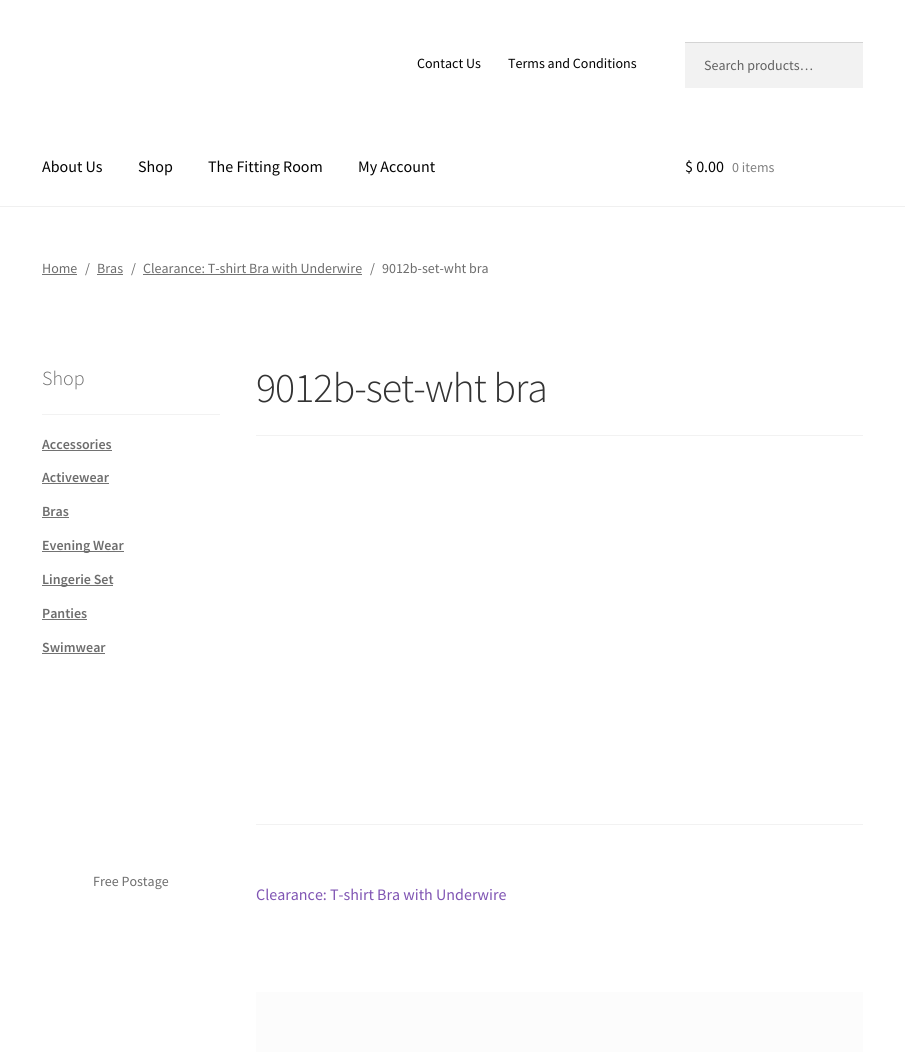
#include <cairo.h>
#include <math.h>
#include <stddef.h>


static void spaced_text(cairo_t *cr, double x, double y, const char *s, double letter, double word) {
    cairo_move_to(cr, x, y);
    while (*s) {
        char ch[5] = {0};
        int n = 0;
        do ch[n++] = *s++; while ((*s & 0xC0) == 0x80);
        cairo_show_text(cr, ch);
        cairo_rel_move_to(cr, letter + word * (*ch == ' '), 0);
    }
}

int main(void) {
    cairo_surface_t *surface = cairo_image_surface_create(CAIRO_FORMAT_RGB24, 905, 1052);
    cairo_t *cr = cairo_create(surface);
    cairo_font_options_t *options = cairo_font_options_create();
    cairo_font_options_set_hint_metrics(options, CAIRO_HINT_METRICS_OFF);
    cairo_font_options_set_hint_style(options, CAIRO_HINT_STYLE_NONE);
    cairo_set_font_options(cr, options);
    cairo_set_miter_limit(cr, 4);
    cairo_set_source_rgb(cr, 1, 1, 1);
    cairo_paint(cr);
    cairo_set_source_rgb(cr, 0.941, 0.941, 0.941);
    cairo_rectangle(cr, 0, 206, 905, 1);
    cairo_fill(cr);
    cairo_select_font_face(cr, "Source Sans Pro", CAIRO_FONT_SLANT_NORMAL, CAIRO_FONT_WEIGHT_NORMAL);
    cairo_set_font_size(cr, 14);
    cairo_set_source_rgb(cr, 0.008, 0.008, 0.008);
    cairo_move_to(cr, 417, 68);
    cairo_show_text(cr, "Contact Us");
    cairo_move_to(cr, 508, 68);
    cairo_show_text(cr, "Terms and Conditions");
    cairo_set_source_rgb(cr, 0.949, 0.949, 0.949);
    cairo_rectangle(cr, 685, 43, 178, 45);
    cairo_fill(cr);
    cairo_set_source_rgb(cr, 0.831, 0.831, 0.831);
    cairo_rectangle(cr, 685, 42, 178, 1);
    cairo_fill(cr);
    cairo_set_source_rgb(cr, 0.38, 0.38, 0.38);
    cairo_move_to(cr, 704, 70);
    cairo_show_text(cr, "Search products…");
    cairo_set_font_size(cr, 16);
    cairo_set_source_rgb(cr, 0.008, 0.008, 0.008);
    cairo_move_to(cr, 42, 172);
    cairo_show_text(cr, "About Us");
    cairo_move_to(cr, 138, 172);
    cairo_show_text(cr, "Shop");
    cairo_move_to(cr, 208, 172);
    cairo_show_text(cr, "The Fitting Room");
    cairo_move_to(cr, 358, 172);
    cairo_show_text(cr, "My Account");
    cairo_move_to(cr, 685, 172);
    cairo_show_text(cr, "$ 0.00");
    cairo_set_font_size(cr, 14);
    cairo_set_source_rgb(cr, 0.502, 0.502, 0.502);
    cairo_move_to(cr, 732, 172);
    cairo_show_text(cr, "0 items");
    cairo_set_source_rgb(cr, 0.427, 0.427, 0.427);
    cairo_move_to(cr, 42, 273);
    cairo_show_text(cr, "Home");
    cairo_set_source_rgb(cr, 0.447, 0.447, 0.447);
    cairo_rectangle(cr, 42, 274, 35, 1);
    cairo_fill(cr);
    cairo_set_source_rgb(cr, 0.427, 0.427, 0.427);
    cairo_move_to(cr, 85, 273);
    cairo_show_text(cr, "/");
    cairo_move_to(cr, 97, 273);
    cairo_show_text(cr, "Bras");
    cairo_set_source_rgb(cr, 0.447, 0.447, 0.447);
    cairo_rectangle(cr, 97, 274, 26, 1);
    cairo_fill(cr);
    cairo_set_source_rgb(cr, 0.427, 0.427, 0.427);
    cairo_move_to(cr, 131, 273);
    cairo_show_text(cr, "/");
    cairo_move_to(cr, 143, 273);
    cairo_show_text(cr, "Clearance: T-shirt Bra with Underwire");
    cairo_set_source_rgb(cr, 0.447, 0.447, 0.447);
    cairo_rectangle(cr, 143, 274, 219, 1);
    cairo_fill(cr);
    cairo_set_source_rgb(cr, 0.427, 0.427, 0.427);
    cairo_move_to(cr, 370, 273);
    cairo_show_text(cr, "/");
    cairo_move_to(cr, 382, 273);
    cairo_show_text(cr, "9012b-set-wht bra");
    cairo_set_source_rgb(cr, 0.949, 0.949, 0.949);
    cairo_rectangle(cr, 42, 414, 178, 1);
    cairo_fill(cr);
    cairo_select_font_face(cr, "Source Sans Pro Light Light", CAIRO_FONT_SLANT_NORMAL, CAIRO_FONT_WEIGHT_NORMAL);
    cairo_set_font_size(cr, 20);
    cairo_set_source_rgb(cr, 0.427, 0.427, 0.427);
    cairo_move_to(cr, 42, 385);
    cairo_show_text(cr, "Shop");
    cairo_select_font_face(cr, "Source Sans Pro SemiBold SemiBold", CAIRO_FONT_SLANT_NORMAL, CAIRO_FONT_WEIGHT_NORMAL);
    cairo_set_font_size(cr, 14);
    cairo_move_to(cr, 42, 449);
    cairo_show_text(cr, "Accessories");
    cairo_set_source_rgb(cr, 0.447, 0.447, 0.447);
    cairo_rectangle(cr, 42, 450, 70, 1);
    cairo_fill(cr);
    cairo_set_source_rgb(cr, 0.427, 0.427, 0.427);
    cairo_move_to(cr, 42, 482);
    cairo_show_text(cr, "Activewear");
    cairo_set_source_rgb(cr, 0.447, 0.447, 0.447);
    cairo_rectangle(cr, 42, 483, 67, 1);
    cairo_fill(cr);
    cairo_set_source_rgb(cr, 0.427, 0.427, 0.427);
    cairo_move_to(cr, 42, 516);
    cairo_show_text(cr, "Bras");
    cairo_set_source_rgb(cr, 0.447, 0.447, 0.447);
    cairo_rectangle(cr, 42, 517, 27, 1);
    cairo_fill(cr);
    cairo_rectangle(cr, 42, 551, 82, 1);
    cairo_fill(cr);
    cairo_set_source_rgb(cr, 0.427, 0.427, 0.427);
    cairo_move_to(cr, 42, 550);
    cairo_show_text(cr, "Evening Wear");
    cairo_set_source_rgb(cr, 0.447, 0.447, 0.447);
    cairo_rectangle(cr, 42, 585, 71, 1);
    cairo_fill(cr);
    cairo_set_source_rgb(cr, 0.427, 0.427, 0.427);
    cairo_move_to(cr, 42, 584);
    cairo_show_text(cr, "Lingerie Set");
    cairo_move_to(cr, 42, 618);
    cairo_show_text(cr, "Panties");
    cairo_set_source_rgb(cr, 0.447, 0.447, 0.447);
    cairo_rectangle(cr, 42, 619, 45, 1);
    cairo_fill(cr);
    cairo_set_source_rgb(cr, 0.427, 0.427, 0.427);
    cairo_move_to(cr, 42, 652);
    cairo_show_text(cr, "Swimwear");
    cairo_set_source_rgb(cr, 0.447, 0.447, 0.447);
    cairo_rectangle(cr, 42, 653, 63, 1);
    cairo_fill(cr);
    cairo_select_font_face(cr, "Source Sans Pro", CAIRO_FONT_SLANT_NORMAL, CAIRO_FONT_WEIGHT_NORMAL);
    cairo_set_source_rgb(cr, 0.427, 0.427, 0.427);
    cairo_move_to(cr, 93, 886);
    cairo_show_text(cr, "Free Postage");
    cairo_set_source_rgb(cr, 0.949, 0.949, 0.949);
    cairo_rectangle(cr, 256, 435, 607, 1);
    cairo_fill(cr);
    cairo_select_font_face(cr, "Source Sans Pro Light Light", CAIRO_FONT_SLANT_NORMAL, CAIRO_FONT_WEIGHT_NORMAL);
    cairo_set_font_size(cr, 42);
    cairo_set_source_rgb(cr, 0.2, 0.2, 0.2);
    spaced_text(cr, 256, 402, "9012b-set-wht bra", -1, 0);
    cairo_set_source_rgb(cr, 0.949, 0.949, 0.949);
    cairo_rectangle(cr, 256, 824, 607, 1);
    cairo_fill(cr);
    cairo_select_font_face(cr, "Source Sans Pro", CAIRO_FONT_SLANT_NORMAL, CAIRO_FONT_WEIGHT_NORMAL);
    cairo_set_font_size(cr, 16);
    cairo_set_source_rgb(cr, 0.498, 0.329, 0.702);
    cairo_move_to(cr, 256, 900);
    cairo_show_text(cr, "Clearance: T-shirt Bra with Underwire");
    cairo_set_source_rgb(cr, 0.988, 0.988, 0.988);
    cairo_rectangle(cr, 256, 992, 607, 60);
    cairo_fill(cr);
    cairo_surface_write_to_png(surface, "page.png");
    cairo_font_options_destroy(options);
    cairo_destroy(cr);
    cairo_surface_destroy(surface);
    return 0;
}
